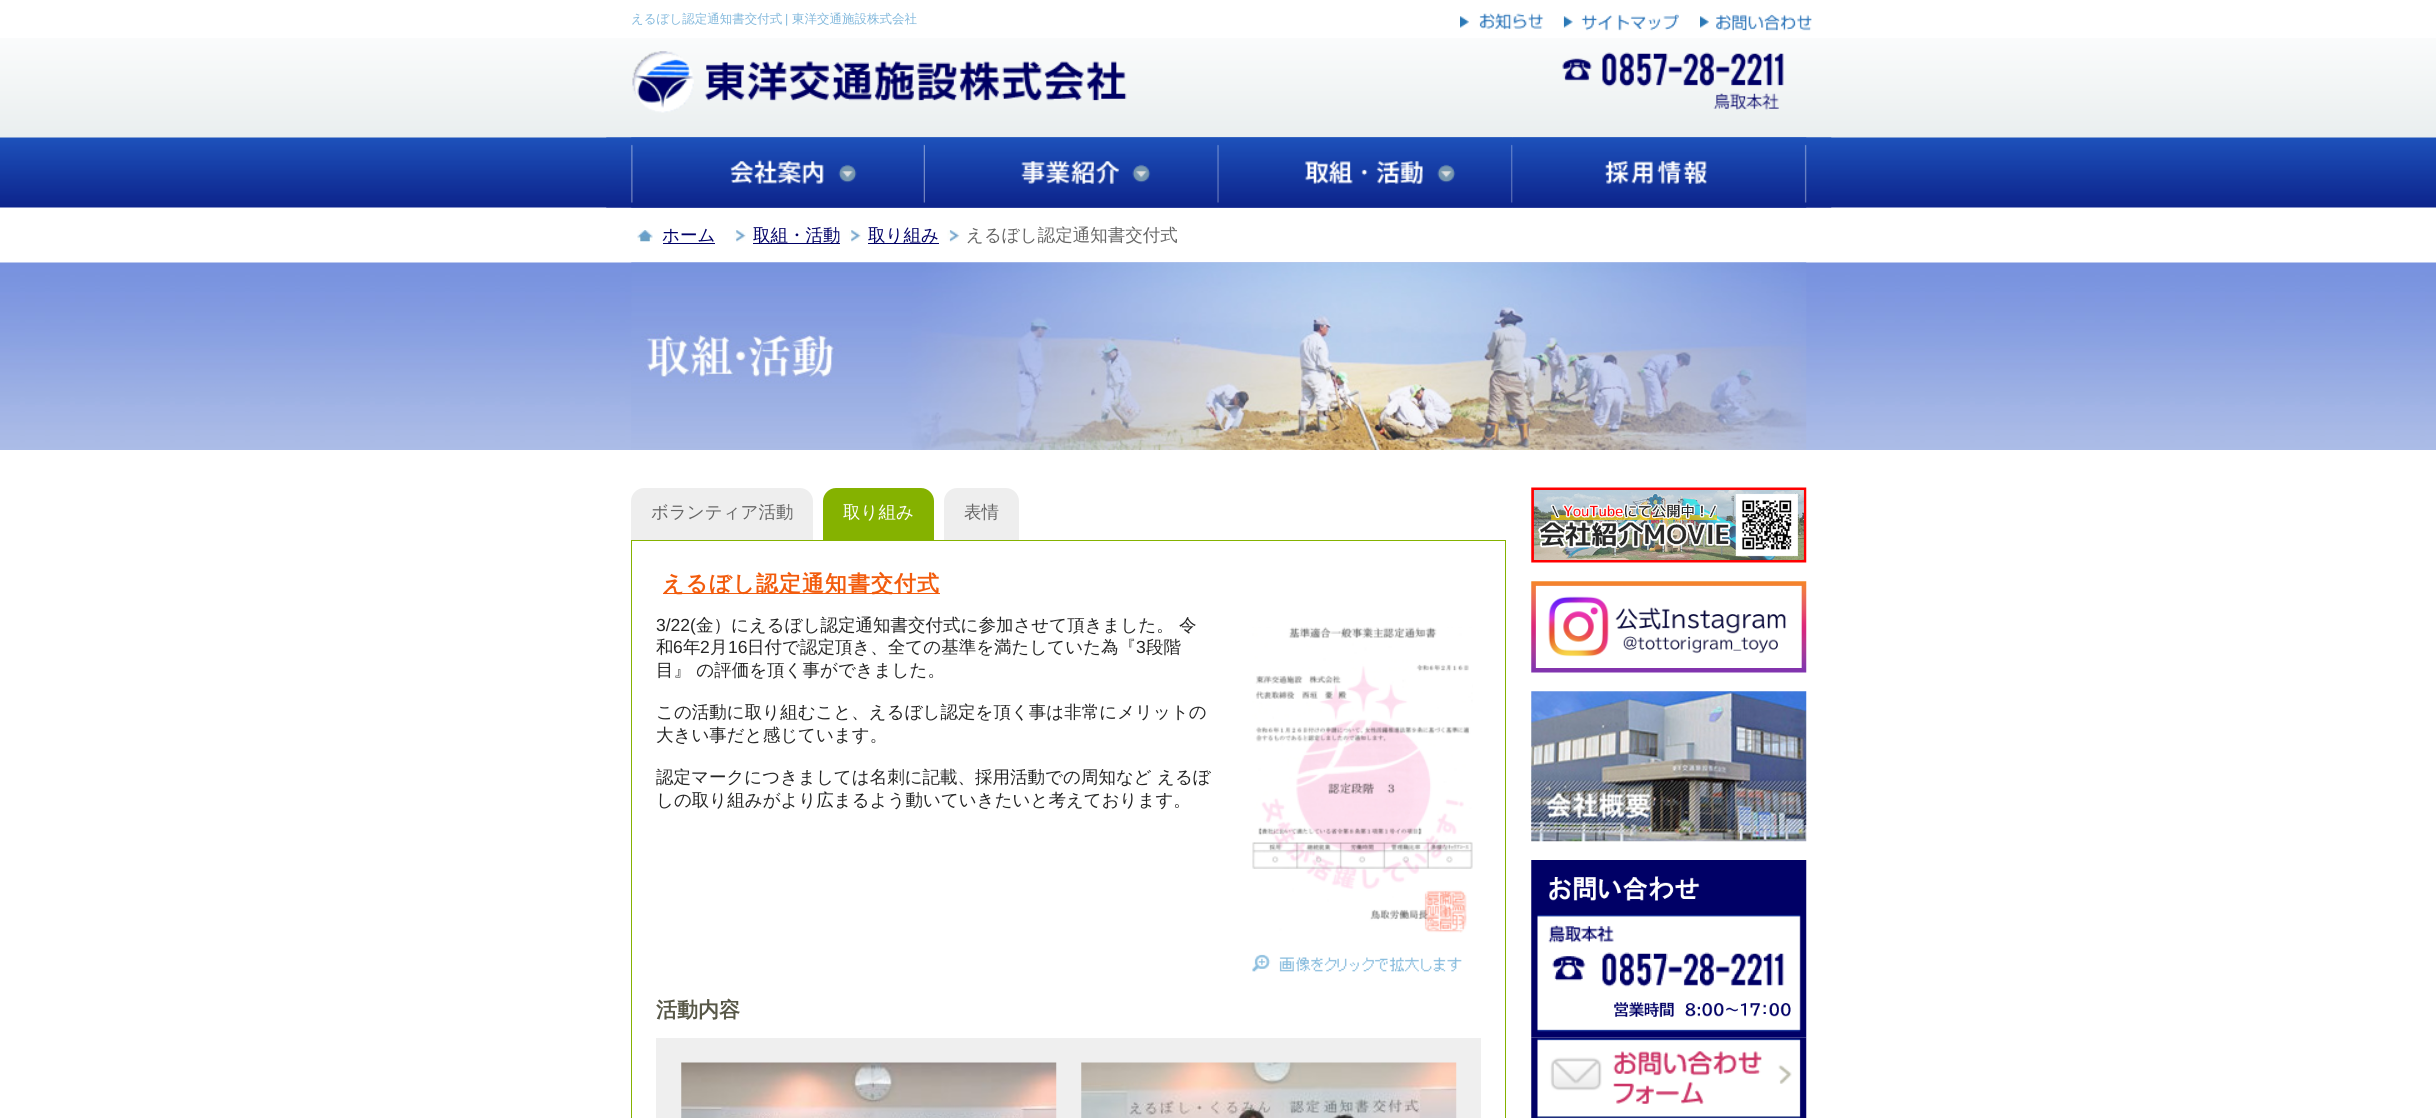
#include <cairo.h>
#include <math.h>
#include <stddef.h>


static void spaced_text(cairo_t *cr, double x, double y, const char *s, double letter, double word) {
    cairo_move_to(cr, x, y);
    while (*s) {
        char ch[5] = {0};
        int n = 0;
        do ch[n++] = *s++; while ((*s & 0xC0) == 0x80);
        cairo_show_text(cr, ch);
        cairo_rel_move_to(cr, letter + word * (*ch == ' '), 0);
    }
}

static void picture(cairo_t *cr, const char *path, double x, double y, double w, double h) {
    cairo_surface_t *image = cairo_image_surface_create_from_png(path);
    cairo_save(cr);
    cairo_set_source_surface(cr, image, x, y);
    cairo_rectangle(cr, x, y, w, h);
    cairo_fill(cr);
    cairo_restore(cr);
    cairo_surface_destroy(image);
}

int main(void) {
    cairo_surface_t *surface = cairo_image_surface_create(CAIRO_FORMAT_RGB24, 2436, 1118);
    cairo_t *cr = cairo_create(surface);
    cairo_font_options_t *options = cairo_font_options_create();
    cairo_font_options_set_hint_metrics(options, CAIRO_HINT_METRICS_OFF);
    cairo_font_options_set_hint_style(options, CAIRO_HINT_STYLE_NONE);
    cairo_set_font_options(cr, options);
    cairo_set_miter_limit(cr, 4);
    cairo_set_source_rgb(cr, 1, 1, 1);
    cairo_paint(cr);
    picture(cr, "img1.png", 0, 38, 2436, 170);
    cairo_select_font_face(cr, "WenQuanYi Zen Hei Medium", CAIRO_FONT_SLANT_NORMAL, CAIRO_FONT_WEIGHT_NORMAL);
    cairo_set_font_size(cr, 12.5);
    cairo_set_source_rgb(cr, 0.51, 0.722, 0.863);
    cairo_move_to(cr, 631, 23);
    cairo_show_text(cr, "えるぼし認定通知書交付式");
    cairo_select_font_face(cr, "Liberation Sans", CAIRO_FONT_SLANT_NORMAL, CAIRO_FONT_WEIGHT_NORMAL);
    cairo_move_to(cr, 785, 23);
    cairo_show_text(cr, "|");
    cairo_select_font_face(cr, "WenQuanYi Zen Hei Medium", CAIRO_FONT_SLANT_NORMAL, CAIRO_FONT_WEIGHT_NORMAL);
    cairo_move_to(cr, 792, 23);
    cairo_show_text(cr, "東洋交通施設株式会社");
    picture(cr, "img2.png", 1460, 13, 84, 17);
    picture(cr, "img3.png", 1563, 13, 116, 18);
    picture(cr, "img4.png", 1700, 14, 112, 17);
    picture(cr, "img5.png", 632, 51, 495, 62);
    picture(cr, "img6.png", 1562, 52, 222, 58);
    picture(cr, "img7.png", 606, 137, 1226, 71);
    picture(cr, "img8.png", 631, 137, 294, 71);
    picture(cr, "img9.png", 925, 137, 294, 71);
    picture(cr, "img10.png", 1218, 137, 295, 71);
    picture(cr, "img11.png", 1512, 137, 295, 71);
    picture(cr, "img12.png", 637, 230, 16, 12);
    cairo_set_font_size(cr, 17.5);
    cairo_set_source_rgb(cr, 0, 0, 0.4);
    cairo_move_to(cr, 662, 241);
    cairo_show_text(cr, "ホーム");
    cairo_rectangle(cr, 663, 243, 52, 1);
    cairo_fill(cr);
    picture(cr, "img13.png", 734, 230, 12, 12);
    cairo_rectangle(cr, 753, 243, 87, 1);
    cairo_fill(cr);
    cairo_move_to(cr, 753, 241);
    cairo_show_text(cr, "取組・活動");
    picture(cr, "img13.png", 849, 230, 12, 12);
    cairo_rectangle(cr, 868, 243, 71, 1);
    cairo_fill(cr);
    cairo_move_to(cr, 868, 241);
    cairo_show_text(cr, "取り組み");
    picture(cr, "img14.png", 947, 230, 13, 12);
    cairo_set_source_rgb(cr, 0.4, 0.4, 0.4);
    cairo_move_to(cr, 966, 241);
    cairo_show_text(cr, "えるぼし認定通知書交付式");
    picture(cr, "img15.png", 0, 262, 2436, 188);
    picture(cr, "img16.png", 631, 262, 1176, 188);
    cairo_set_source_rgb(cr, 0.933, 0.933, 0.933);
    cairo_new_path(cr);
    cairo_move_to(cr, 644, 488);
    cairo_line_to(cr, 800, 488);
    cairo_curve_to(cr, 807, 488, 813, 494, 813, 501);
    cairo_line_to(cr, 813, 540);
    cairo_line_to(cr, 631, 540);
    cairo_line_to(cr, 631, 501);
    cairo_curve_to(cr, 631, 494, 637, 488, 644, 488);
    cairo_close_path(cr);
    cairo_fill(cr);
    cairo_set_source_rgb(cr, 0.4, 0.4, 0.4);
    cairo_move_to(cr, 651, 518);
    cairo_show_text(cr, "ボランティア活動");
    cairo_set_source_rgb(cr, 0.522, 0.698, 0);
    cairo_new_path(cr);
    cairo_move_to(cr, 836, 488);
    cairo_line_to(cr, 921, 488);
    cairo_curve_to(cr, 928, 488, 934, 494, 934, 501);
    cairo_line_to(cr, 934, 540);
    cairo_line_to(cr, 823, 540);
    cairo_line_to(cr, 823, 501);
    cairo_curve_to(cr, 823, 494, 829, 488, 836, 488);
    cairo_close_path(cr);
    cairo_fill(cr);
    cairo_set_source_rgb(cr, 1, 1, 1);
    cairo_move_to(cr, 843, 518);
    cairo_show_text(cr, "取り組み");
    cairo_set_source_rgb(cr, 0.933, 0.933, 0.933);
    cairo_new_path(cr);
    cairo_move_to(cr, 957, 488);
    cairo_line_to(cr, 1006, 488);
    cairo_curve_to(cr, 1013, 488, 1019, 494, 1019, 501);
    cairo_line_to(cr, 1019, 540);
    cairo_line_to(cr, 944, 540);
    cairo_line_to(cr, 944, 501);
    cairo_curve_to(cr, 944, 494, 950, 488, 957, 488);
    cairo_close_path(cr);
    cairo_fill(cr);
    cairo_set_source_rgb(cr, 0.4, 0.4, 0.4);
    cairo_move_to(cr, 964, 518);
    cairo_show_text(cr, "表情");
    cairo_rectangle(cr, 631.5, 540.5, 874, 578);
    cairo_set_source_rgb(cr, 0.522, 0.698, 0);
    cairo_set_line_width(cr, 1);
    cairo_stroke(cr);
    cairo_set_source_rgb(cr, 0.949, 0.357, 0.047);
    cairo_rectangle(cr, 663, 593, 277, 1);
    cairo_fill(cr);
    cairo_select_font_face(cr, "WenQuanYi Zen Hei", CAIRO_FONT_SLANT_NORMAL, CAIRO_FONT_WEIGHT_BOLD);
    cairo_set_font_size(cr, 21.9);
    spaced_text(cr, 662, 591, "えるぼし認定通知書交付式", 1.1, 0);
    cairo_select_font_face(cr, "Liberation Sans", CAIRO_FONT_SLANT_NORMAL, CAIRO_FONT_WEIGHT_NORMAL);
    cairo_set_font_size(cr, 17.5);
    cairo_set_source_rgb(cr, 0.145, 0.145, 0.145);
    cairo_move_to(cr, 656, 631);
    cairo_show_text(cr, "3/22(");
    cairo_select_font_face(cr, "WenQuanYi Zen Hei Medium", CAIRO_FONT_SLANT_NORMAL, CAIRO_FONT_WEIGHT_NORMAL);
    cairo_move_to(cr, 696, 631);
    cairo_show_text(cr, "金）にえるぼし認定通知書交付式に参加させて頂きました。 令");
    picture(cr, "img17.png", 1252, 627, 221, 345);
    cairo_move_to(cr, 656, 653);
    cairo_show_text(cr, "和");
    cairo_select_font_face(cr, "Liberation Sans", CAIRO_FONT_SLANT_NORMAL, CAIRO_FONT_WEIGHT_NORMAL);
    cairo_move_to(cr, 673, 653);
    cairo_show_text(cr, "6");
    cairo_select_font_face(cr, "WenQuanYi Zen Hei Medium", CAIRO_FONT_SLANT_NORMAL, CAIRO_FONT_WEIGHT_NORMAL);
    cairo_move_to(cr, 683, 653);
    cairo_show_text(cr, "年");
    cairo_select_font_face(cr, "Liberation Sans", CAIRO_FONT_SLANT_NORMAL, CAIRO_FONT_WEIGHT_NORMAL);
    cairo_move_to(cr, 700, 653);
    cairo_show_text(cr, "2");
    cairo_select_font_face(cr, "WenQuanYi Zen Hei Medium", CAIRO_FONT_SLANT_NORMAL, CAIRO_FONT_WEIGHT_NORMAL);
    cairo_move_to(cr, 710, 653);
    cairo_show_text(cr, "月");
    cairo_select_font_face(cr, "Liberation Sans", CAIRO_FONT_SLANT_NORMAL, CAIRO_FONT_WEIGHT_NORMAL);
    cairo_move_to(cr, 728, 653);
    cairo_show_text(cr, "16");
    cairo_select_font_face(cr, "WenQuanYi Zen Hei Medium", CAIRO_FONT_SLANT_NORMAL, CAIRO_FONT_WEIGHT_NORMAL);
    cairo_move_to(cr, 747, 653);
    cairo_show_text(cr, "日付で認定頂き、全ての基準を満たしていた為『");
    cairo_select_font_face(cr, "Liberation Sans", CAIRO_FONT_SLANT_NORMAL, CAIRO_FONT_WEIGHT_NORMAL);
    cairo_move_to(cr, 1136, 653);
    cairo_show_text(cr, "3");
    cairo_select_font_face(cr, "WenQuanYi Zen Hei Medium", CAIRO_FONT_SLANT_NORMAL, CAIRO_FONT_WEIGHT_NORMAL);
    cairo_move_to(cr, 1146, 653);
    cairo_show_text(cr, "段階");
    cairo_move_to(cr, 656, 676);
    cairo_show_text(cr, "目』 の評価を頂く事ができました。");
    cairo_move_to(cr, 656, 718);
    cairo_show_text(cr, "この活動に取り組むこと、えるぼし認定を頂く事は非常にメリットの");
    cairo_move_to(cr, 656, 741);
    cairo_show_text(cr, "大きい事だと感じています。");
    cairo_move_to(cr, 656, 783);
    cairo_show_text(cr, "認定マークにつきましては名刺に記載、採用活動での周知など えるぼ");
    cairo_move_to(cr, 656, 806);
    cairo_show_text(cr, "しの取り組みがより広まるよう動いていきたいと考えております。");
    cairo_select_font_face(cr, "WenQuanYi Zen Hei", CAIRO_FONT_SLANT_NORMAL, CAIRO_FONT_WEIGHT_BOLD);
    cairo_set_font_size(cr, 21);
    cairo_set_source_rgb(cr, 0.341, 0.341, 0.278);
    cairo_move_to(cr, 656, 1017);
    cairo_show_text(cr, "活動内容");
    cairo_set_source_rgb(cr, 0.937, 0.937, 0.937);
    cairo_rectangle(cr, 656, 1038, 825, 80);
    cairo_fill(cr);
    picture(cr, "img18.png", 681, 1062, 376, 56);
    picture(cr, "img19.png", 1081, 1062, 376, 56);
    picture(cr, "img20.png", 1531, 487, 276, 76);
    picture(cr, "img21.png", 1531, 581, 276, 92);
    picture(cr, "img22.png", 1531, 691, 276, 151);
    picture(cr, "img23.png", 1531, 860, 276, 178);
    picture(cr, "img24.png", 1531, 1037, 276, 81);
    cairo_surface_write_to_png(surface, "page.png");
    cairo_font_options_destroy(options);
    cairo_destroy(cr);
    cairo_surface_destroy(surface);
    return 0;
}
